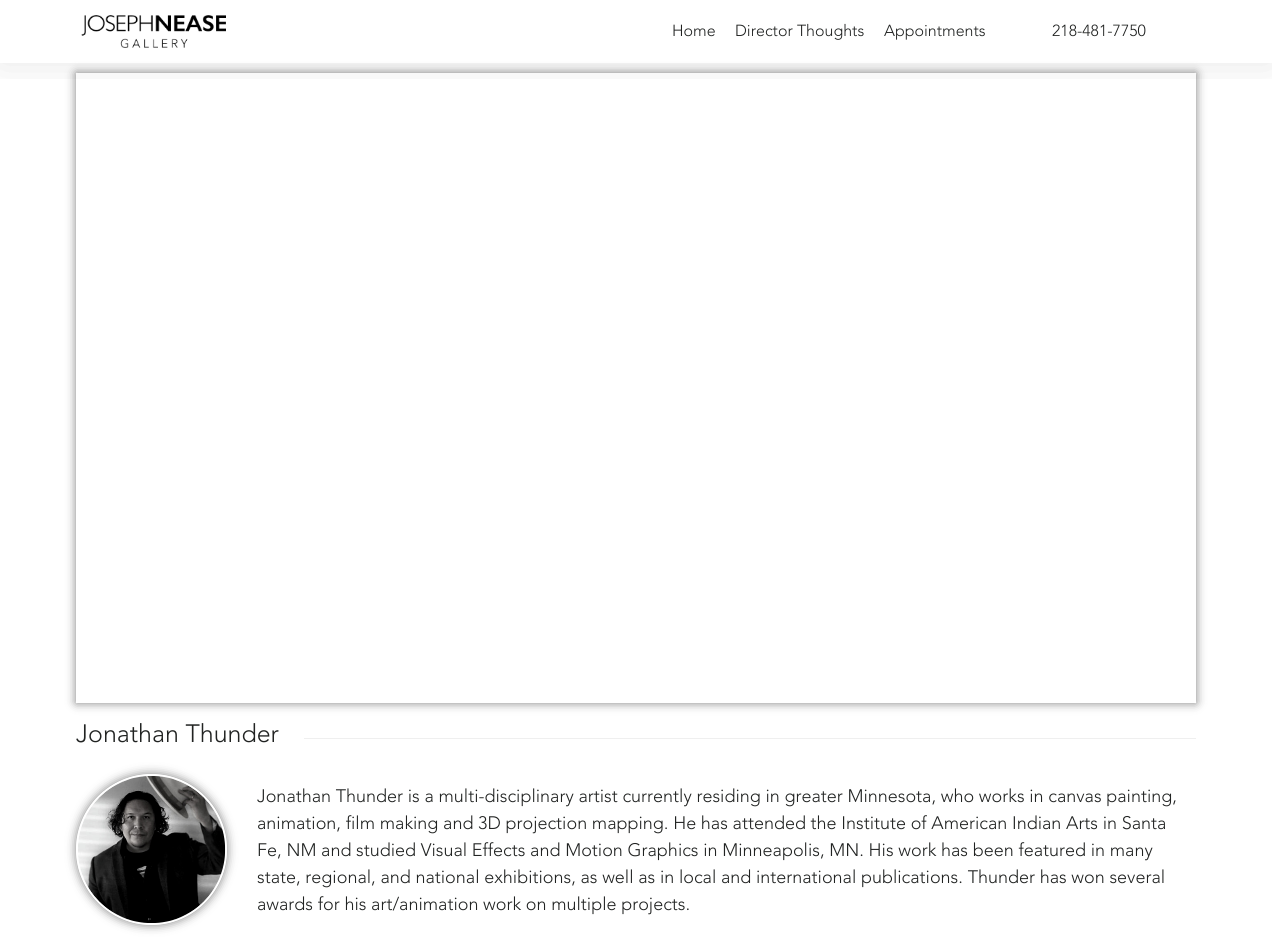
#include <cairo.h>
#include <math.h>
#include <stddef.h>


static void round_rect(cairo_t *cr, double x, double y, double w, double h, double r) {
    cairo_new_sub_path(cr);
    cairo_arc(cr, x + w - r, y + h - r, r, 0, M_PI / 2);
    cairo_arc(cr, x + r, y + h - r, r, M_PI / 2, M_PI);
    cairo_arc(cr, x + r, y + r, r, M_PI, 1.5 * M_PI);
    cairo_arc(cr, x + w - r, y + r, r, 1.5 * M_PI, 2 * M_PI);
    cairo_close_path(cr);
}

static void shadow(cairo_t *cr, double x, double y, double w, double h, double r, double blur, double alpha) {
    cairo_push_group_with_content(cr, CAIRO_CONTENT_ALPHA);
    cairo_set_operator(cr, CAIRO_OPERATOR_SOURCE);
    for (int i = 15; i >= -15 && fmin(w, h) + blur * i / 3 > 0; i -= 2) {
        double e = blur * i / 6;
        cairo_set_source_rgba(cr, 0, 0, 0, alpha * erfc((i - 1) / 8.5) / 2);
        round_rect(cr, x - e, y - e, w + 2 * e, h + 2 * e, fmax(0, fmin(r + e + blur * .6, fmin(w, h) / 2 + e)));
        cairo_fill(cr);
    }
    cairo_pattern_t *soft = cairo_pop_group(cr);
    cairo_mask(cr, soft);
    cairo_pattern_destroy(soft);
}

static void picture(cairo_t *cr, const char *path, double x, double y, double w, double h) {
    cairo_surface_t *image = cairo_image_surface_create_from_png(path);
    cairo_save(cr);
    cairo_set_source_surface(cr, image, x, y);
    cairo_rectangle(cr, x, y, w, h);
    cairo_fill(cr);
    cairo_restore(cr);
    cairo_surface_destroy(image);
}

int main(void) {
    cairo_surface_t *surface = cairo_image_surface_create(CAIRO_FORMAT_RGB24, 1272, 937);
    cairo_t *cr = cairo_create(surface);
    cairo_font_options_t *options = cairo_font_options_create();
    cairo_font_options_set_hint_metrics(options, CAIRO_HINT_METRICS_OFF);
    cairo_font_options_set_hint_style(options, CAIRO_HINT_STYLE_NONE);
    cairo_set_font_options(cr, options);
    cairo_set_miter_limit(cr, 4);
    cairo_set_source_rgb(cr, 1, 1, 1);
    cairo_paint(cr);
    cairo_save(cr);
    cairo_rectangle(cr, 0, 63, 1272, 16);
    cairo_clip(cr);
    cairo_set_source_rgb(cr, 0, 0, 0);
    shadow(cr, 0, 0, 1272, 63, 0, 19, 0.1);
    cairo_restore(cr);
    picture(cr, "img1.png", 81, 15, 145, 33);
    cairo_select_font_face(cr, "Avenir Light", CAIRO_FONT_SLANT_NORMAL, CAIRO_FONT_WEIGHT_NORMAL);
    cairo_set_font_size(cr, 16);
    cairo_set_source_rgb(cr, 0.129, 0.137, 0.133);
    cairo_move_to(cr, 672, 36);
    cairo_show_text(cr, "Home");
    cairo_move_to(cr, 735, 36);
    cairo_show_text(cr, "Director Thoughts");
    cairo_move_to(cr, 884, 36);
    cairo_show_text(cr, "Appointments");
    cairo_move_to(cr, 1052, 36);
    cairo_show_text(cr, "218-481-7750");
    cairo_save(cr);
    cairo_set_fill_rule(cr, CAIRO_FILL_RULE_EVEN_ODD);
    cairo_new_path(cr);
    cairo_move_to(cr, 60, 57);
    cairo_line_to(cr, 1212, 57);
    cairo_line_to(cr, 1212, 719);
    cairo_line_to(cr, 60, 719);
    cairo_close_path(cr);
    cairo_move_to(cr, 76, 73);
    cairo_line_to(cr, 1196, 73);
    cairo_line_to(cr, 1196, 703);
    cairo_line_to(cr, 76, 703);
    cairo_close_path(cr);
    cairo_clip(cr);
    cairo_set_source_rgb(cr, 0, 0, 0);
    shadow(cr, 76, 73, 1120, 630, 0, 5, 0.5);
    cairo_restore(cr);
    cairo_set_font_size(cr, 25);
    cairo_move_to(cr, 76, 742);
    cairo_show_text(cr, "Jonathan Thunder");
    cairo_set_source_rgb(cr, 0.937, 0.937, 0.937);
    cairo_rectangle(cr, 304, 738, 892, 1);
    cairo_fill(cr);
    cairo_save(cr);
    cairo_set_fill_rule(cr, CAIRO_FILL_RULE_EVEN_ODD);
    cairo_new_path(cr);
    cairo_move_to(cr, 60, 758);
    cairo_line_to(cr, 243, 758);
    cairo_line_to(cr, 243, 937);
    cairo_line_to(cr, 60, 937);
    cairo_close_path(cr);
    cairo_move_to(cr, 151.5, 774);
    cairo_curve_to(cr, 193, 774, 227, 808, 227, 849.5);
    cairo_curve_to(cr, 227, 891, 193, 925, 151.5, 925);
    cairo_curve_to(cr, 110, 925, 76, 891, 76, 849.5);
    cairo_curve_to(cr, 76, 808, 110, 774, 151.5, 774);
    cairo_close_path(cr);
    cairo_clip(cr);
    cairo_set_source_rgb(cr, 0, 0, 0);
    shadow(cr, 76, 774, 151, 151, 75.5, 5, 0.5);
    cairo_restore(cr);
    picture(cr, "img2.png", 78, 776, 148, 147);
    cairo_set_font_size(cr, 18);
    cairo_set_source_rgb(cr, 0.129, 0.137, 0.133);
    cairo_move_to(cr, 257, 802);
    cairo_show_text(cr, "Jonathan Thunder is a multi-disciplinary artist currently residing in greater Minnesota, who works in canvas painting,");
    cairo_move_to(cr, 257, 829);
    cairo_show_text(cr, "animation, film making and 3D projection mapping. He has attended the Institute of American Indian Arts in Santa");
    cairo_move_to(cr, 257, 856);
    cairo_show_text(cr, "Fe, NM and studied Visual Effects and Motion Graphics in Minneapolis, MN. His work has been featured in many");
    cairo_move_to(cr, 257, 883);
    cairo_show_text(cr, "state, regional, and national exhibitions, as well as in local and international publications. Thunder has won several");
    cairo_move_to(cr, 257, 910);
    cairo_show_text(cr, "awards for his art/animation work on multiple projects.");
    cairo_surface_write_to_png(surface, "page.png");
    cairo_font_options_destroy(options);
    cairo_destroy(cr);
    cairo_surface_destroy(surface);
    return 0;
}
